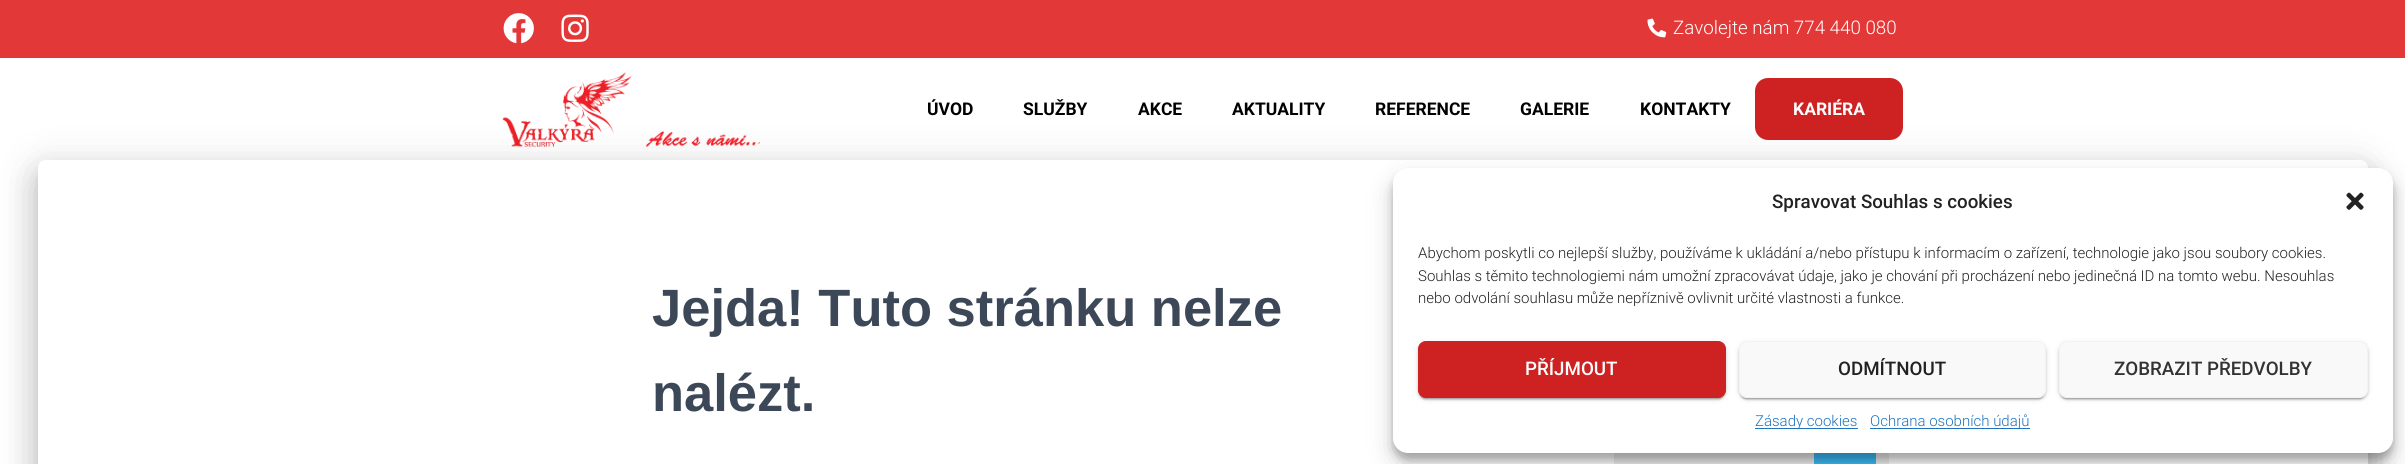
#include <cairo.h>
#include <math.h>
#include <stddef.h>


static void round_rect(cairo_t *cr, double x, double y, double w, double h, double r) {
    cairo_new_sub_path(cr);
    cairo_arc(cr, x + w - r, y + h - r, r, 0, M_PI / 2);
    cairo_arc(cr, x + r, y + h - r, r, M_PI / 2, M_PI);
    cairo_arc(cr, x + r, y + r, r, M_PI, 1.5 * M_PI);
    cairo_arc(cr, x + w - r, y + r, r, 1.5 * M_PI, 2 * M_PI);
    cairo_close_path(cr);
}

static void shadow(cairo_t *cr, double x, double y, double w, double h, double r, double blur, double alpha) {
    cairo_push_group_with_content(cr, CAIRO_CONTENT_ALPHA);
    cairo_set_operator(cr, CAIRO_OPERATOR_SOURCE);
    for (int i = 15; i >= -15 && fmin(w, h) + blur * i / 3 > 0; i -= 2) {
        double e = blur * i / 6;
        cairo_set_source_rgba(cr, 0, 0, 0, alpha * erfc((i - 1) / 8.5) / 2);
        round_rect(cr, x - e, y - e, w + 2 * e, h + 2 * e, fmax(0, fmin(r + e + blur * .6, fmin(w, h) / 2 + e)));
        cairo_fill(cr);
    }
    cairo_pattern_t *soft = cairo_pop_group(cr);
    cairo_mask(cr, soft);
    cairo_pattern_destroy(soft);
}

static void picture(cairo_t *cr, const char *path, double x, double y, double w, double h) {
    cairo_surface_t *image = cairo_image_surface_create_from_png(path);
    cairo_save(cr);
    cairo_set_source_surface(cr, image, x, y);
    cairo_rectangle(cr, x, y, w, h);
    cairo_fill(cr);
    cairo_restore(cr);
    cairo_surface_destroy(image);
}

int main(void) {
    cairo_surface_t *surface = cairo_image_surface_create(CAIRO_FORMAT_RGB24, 2405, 464);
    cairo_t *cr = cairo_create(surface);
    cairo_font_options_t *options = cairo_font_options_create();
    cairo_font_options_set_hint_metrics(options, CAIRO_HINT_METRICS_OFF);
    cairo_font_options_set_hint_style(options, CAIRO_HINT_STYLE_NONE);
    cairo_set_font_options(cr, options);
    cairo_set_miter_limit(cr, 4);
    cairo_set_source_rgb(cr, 1, 1, 1);
    cairo_paint(cr);
    cairo_set_source_rgb(cr, 0.89, 0.22, 0.22);
    cairo_rectangle(cr, 0, 0, 2405, 58);
    cairo_fill(cr);
    picture(cr, "img1.png", 503, 13, 31, 31);
    picture(cr, "img2.png", 561, 14, 28, 28);
    picture(cr, "img3.png", 1647, 18, 20, 20);
    cairo_select_font_face(cr, "Roboto Light", CAIRO_FONT_SLANT_NORMAL, CAIRO_FONT_WEIGHT_NORMAL);
    cairo_set_font_size(cr, 18.75);
    cairo_set_source_rgb(cr, 1, 1, 1);
    cairo_move_to(cr, 1673, 34);
    cairo_show_text(cr, "Zavolejte nám 774 440 080");
    picture(cr, "img4.png", 502, 72, 259, 75);
    cairo_set_source_rgb(cr, 0, 0, 0);
    shadow(cr, 31, 161, 2343, 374, 14, 19, 0.12);
    cairo_select_font_face(cr, "Roboto", CAIRO_FONT_SLANT_NORMAL, CAIRO_FONT_WEIGHT_BOLD);
    cairo_set_font_size(cr, 17.5);
    cairo_set_source_rgb(cr, 0, 0, 0);
    cairo_move_to(cr, 927, 115);
    cairo_show_text(cr, "ÚVOD");
    cairo_move_to(cr, 1023, 115);
    cairo_show_text(cr, "SLUŽBY");
    cairo_move_to(cr, 1138, 115);
    cairo_show_text(cr, "AKCE");
    cairo_move_to(cr, 1232, 115);
    cairo_show_text(cr, "AKTUALITY");
    cairo_move_to(cr, 1375, 115);
    cairo_show_text(cr, "REFERENCE");
    cairo_move_to(cr, 1520, 115);
    cairo_show_text(cr, "GALERIE");
    cairo_move_to(cr, 1640, 115);
    cairo_show_text(cr, "KONTAKTY");
    cairo_set_source_rgb(cr, 0, 0, 0);
    shadow(cr, 35, 178, 2335, 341, 10, 15, 0.14);
    cairo_set_source_rgb(cr, 0.804, 0.129, 0.133);
    round_rect(cr, 1755, 78, 148, 62, 13);
    cairo_fill(cr);
    cairo_set_source_rgb(cr, 1, 1, 1);
    cairo_move_to(cr, 1793, 115);
    cairo_show_text(cr, "KARIÉRA");
    cairo_set_source_rgb(cr, 0, 0, 0);
    shadow(cr, 44, 176, 2317, 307, 1, 6, 0.2);
    cairo_set_source_rgb(cr, 1, 1, 1);
    cairo_new_path(cr);
    cairo_move_to(cr, 46, 160);
    cairo_line_to(cr, 2360, 160);
    cairo_curve_to(cr, 2364.5, 160, 2368, 163.5, 2368, 168);
    cairo_line_to(cr, 2368, 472);
    cairo_line_to(cr, 38, 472);
    cairo_line_to(cr, 38, 168);
    cairo_curve_to(cr, 38, 163.5, 41.5, 160, 46, 160);
    cairo_close_path(cr);
    cairo_fill(cr);
    cairo_select_font_face(cr, "Liberation Sans", CAIRO_FONT_SLANT_NORMAL, CAIRO_FONT_WEIGHT_BOLD);
    cairo_set_font_size(cr, 52.5);
    cairo_set_source_rgb(cr, 0.235, 0.282, 0.345);
    cairo_move_to(cr, 652, 326);
    cairo_show_text(cr, "Jejda! Tuto stránku nelze");
    cairo_move_to(cr, 652, 411);
    cairo_show_text(cr, "nalézt.");
    cairo_set_source_rgb(cr, 0.933, 0.933, 0.933);
    cairo_rectangle(cr, 1614, 453, 275, 11);
    cairo_fill(cr);
    cairo_set_source_rgb(cr, 0.227, 0.741, 0.973);
    cairo_rectangle(cr, 1814, 453, 62, 11);
    cairo_fill(cr);
    cairo_set_source_rgb(cr, 0, 0, 0);
    shadow(cr, 1393, 175, 1000, 285, 15, 4, 0.23);
    shadow(cr, 1393, 180, 1000, 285, 15, 12.5, 0.19);
    cairo_set_source_rgb(cr, 1, 1, 1);
    round_rect(cr, 1393, 168, 1000, 285, 15);
    cairo_fill(cr);
    cairo_select_font_face(cr, "Roboto Medium", CAIRO_FONT_SLANT_NORMAL, CAIRO_FONT_WEIGHT_NORMAL);
    cairo_set_font_size(cr, 18.75);
    cairo_set_source_rgb(cr, 0.133, 0.133, 0.133);
    cairo_move_to(cr, 1772, 208);
    cairo_show_text(cr, "Spravovat Souhlas s cookies");
    picture(cr, "img5.png", 2346, 192, 18, 18);
    cairo_select_font_face(cr, "Roboto Light", CAIRO_FONT_SLANT_NORMAL, CAIRO_FONT_WEIGHT_NORMAL);
    cairo_set_font_size(cr, 15);
    cairo_move_to(cr, 1418, 258);
    cairo_show_text(cr, "Abychom poskytli co nejlepší služby, používáme k ukládání a/nebo přístupu k informacím o zařízení, technologie jako jsou soubory cookies.");
    cairo_move_to(cr, 1418, 281);
    cairo_show_text(cr, "Souhlas s těmito technologiemi nám umožní zpracovávat údaje, jako je chování při procházení nebo jedinečná ID na tomto webu. Nesouhlas");
    cairo_move_to(cr, 1418, 303);
    cairo_show_text(cr, "nebo odvolání souhlasu může nepříznivě ovlivnit určité vlastnosti a funkce.");
    cairo_set_source_rgb(cr, 0.039, 0, 0);
    shadow(cr, 1418, 343, 308, 56, 8, 3, 0.12);
    shadow(cr, 1420, 348, 304, 51, 5, 0.5, 0.2);
    shadow(cr, 1418, 344, 308, 56, 8, 1, 0.14);
    cairo_set_source_rgb(cr, 0.804, 0.129, 0.133);
    round_rect(cr, 1418.5, 341.5, 307, 56, 7.5);
    cairo_fill_preserve(cr);
    cairo_set_line_width(cr, 1);
    cairo_stroke(cr);
    cairo_select_font_face(cr, "Roboto Medium", CAIRO_FONT_SLANT_NORMAL, CAIRO_FONT_WEIGHT_NORMAL);
    cairo_set_font_size(cr, 18.75);
    cairo_set_source_rgb(cr, 1, 1, 1);
    cairo_move_to(cr, 1525, 375);
    cairo_show_text(cr, "PŘÍJMOUT");
    cairo_set_source_rgb(cr, 0.039, 0, 0);
    shadow(cr, 1739, 343, 307, 56, 8, 3, 0.12);
    shadow(cr, 1741, 348, 303, 51, 5, 0.5, 0.2);
    shadow(cr, 1739, 344, 307, 56, 8, 1, 0.14);
    cairo_set_source_rgb(cr, 0.976, 0.976, 0.976);
    round_rect(cr, 1739.5, 341.5, 306, 56, 7.5);
    cairo_fill_preserve(cr);
    cairo_set_source_rgb(cr, 0.949, 0.949, 0.949);
    cairo_stroke(cr);
    cairo_set_source_rgb(cr, 0.133, 0.133, 0.133);
    cairo_move_to(cr, 1838, 375);
    cairo_show_text(cr, "ODMÍTNOUT");
    cairo_set_source_rgb(cr, 0.039, 0, 0);
    shadow(cr, 2059, 343, 309, 56, 8, 3, 0.12);
    shadow(cr, 2061, 348, 304, 51, 5, 0.5, 0.2);
    shadow(cr, 2059, 344, 309, 56, 8, 1, 0.14);
    cairo_set_source_rgb(cr, 0.976, 0.976, 0.976);
    round_rect(cr, 2059.5, 341.5, 308, 56, 7.5);
    cairo_fill_preserve(cr);
    cairo_set_source_rgb(cr, 0.949, 0.949, 0.949);
    cairo_stroke(cr);
    cairo_set_source_rgb(cr, 0.2, 0.2, 0.2);
    cairo_move_to(cr, 2114, 375);
    cairo_show_text(cr, "ZOBRAZIT PŘEDVOLBY");
    cairo_set_source_rgb(cr, 0.118, 0.451, 0.745);
    cairo_rectangle(cr, 1755, 428, 103, 1);
    cairo_fill(cr);
    cairo_select_font_face(cr, "Roboto Light", CAIRO_FONT_SLANT_NORMAL, CAIRO_FONT_WEIGHT_NORMAL);
    cairo_set_font_size(cr, 15);
    cairo_move_to(cr, 1755, 426);
    cairo_show_text(cr, "Zásady cookies");
    cairo_rectangle(cr, 1870, 428, 160, 1);
    cairo_fill(cr);
    cairo_move_to(cr, 1870, 426);
    cairo_show_text(cr, "Ochrana osobních údajů");
    cairo_surface_write_to_png(surface, "page.png");
    cairo_font_options_destroy(options);
    cairo_destroy(cr);
    cairo_surface_destroy(surface);
    return 0;
}
